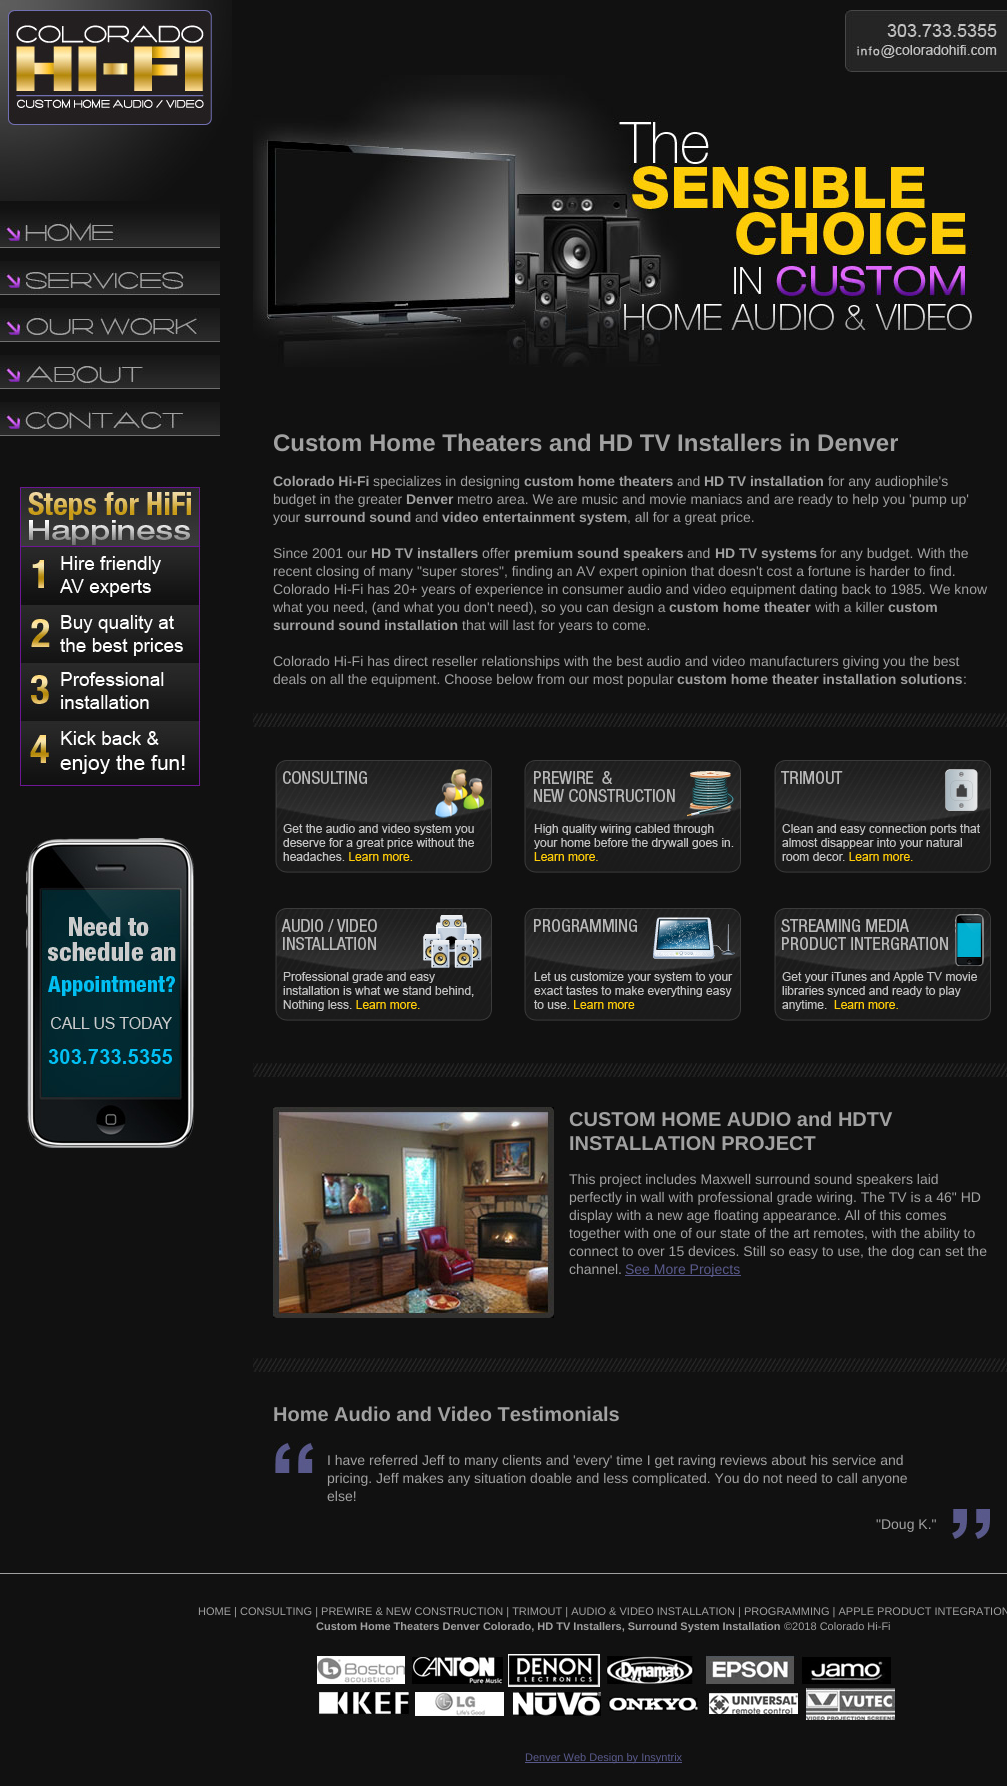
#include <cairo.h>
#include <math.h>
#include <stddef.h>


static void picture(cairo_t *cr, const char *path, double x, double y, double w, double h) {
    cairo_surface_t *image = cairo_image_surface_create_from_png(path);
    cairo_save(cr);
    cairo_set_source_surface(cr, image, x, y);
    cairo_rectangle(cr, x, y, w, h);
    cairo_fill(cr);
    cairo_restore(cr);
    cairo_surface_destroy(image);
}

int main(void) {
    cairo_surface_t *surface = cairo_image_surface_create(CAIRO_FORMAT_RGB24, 1007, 1786);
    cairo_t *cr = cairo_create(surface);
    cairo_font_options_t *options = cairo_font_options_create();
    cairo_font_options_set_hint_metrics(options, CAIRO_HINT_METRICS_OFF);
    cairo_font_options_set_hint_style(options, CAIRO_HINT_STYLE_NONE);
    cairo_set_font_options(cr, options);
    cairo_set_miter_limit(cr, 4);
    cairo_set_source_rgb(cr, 0.067, 0.067, 0.067);
    cairo_paint(cr);
    picture(cr, "img1.png", 0, 0, 232, 233);
    picture(cr, "img2.png", 8, 10, 204, 116);
    picture(cr, "img3.png", 0, 201, 220, 47);
    picture(cr, "img4.png", 0, 261, 220, 34);
    picture(cr, "img5.png", 0, 308, 220, 34);
    picture(cr, "img6.png", 0, 355, 220, 34);
    picture(cr, "img7.png", 0, 402, 220, 34);
    picture(cr, "img8.png", 19, 486, 182, 301);
    picture(cr, "img9.png", 26, 838, 168, 311);
    picture(cr, "img10.png", 845, 10, 162, 62);
    picture(cr, "img11.png", 253, 75, 720, 292);
    cairo_select_font_face(cr, "Liberation Sans", CAIRO_FONT_SLANT_NORMAL, CAIRO_FONT_WEIGHT_BOLD);
    cairo_set_font_size(cr, 24);
    cairo_set_source_rgb(cr, 0.631, 0.631, 0.631);
    cairo_move_to(cr, 273, 451);
    cairo_show_text(cr, "Custom Home Theaters and HD TV Installers in Denver");
    cairo_set_font_size(cr, 14);
    cairo_move_to(cr, 273, 486);
    cairo_show_text(cr, "Colorado Hi-Fi");
    cairo_select_font_face(cr, "Liberation Sans", CAIRO_FONT_SLANT_NORMAL, CAIRO_FONT_WEIGHT_NORMAL);
    cairo_move_to(cr, 373, 486);
    cairo_show_text(cr, "specializes in designing");
    cairo_select_font_face(cr, "Liberation Sans", CAIRO_FONT_SLANT_NORMAL, CAIRO_FONT_WEIGHT_BOLD);
    cairo_move_to(cr, 524, 486);
    cairo_show_text(cr, "custom home theaters");
    cairo_select_font_face(cr, "Liberation Sans", CAIRO_FONT_SLANT_NORMAL, CAIRO_FONT_WEIGHT_NORMAL);
    cairo_move_to(cr, 677, 486);
    cairo_show_text(cr, "and");
    cairo_select_font_face(cr, "Liberation Sans", CAIRO_FONT_SLANT_NORMAL, CAIRO_FONT_WEIGHT_BOLD);
    cairo_move_to(cr, 704, 486);
    cairo_show_text(cr, "HD TV installation");
    cairo_select_font_face(cr, "Liberation Sans", CAIRO_FONT_SLANT_NORMAL, CAIRO_FONT_WEIGHT_NORMAL);
    cairo_move_to(cr, 828, 486);
    cairo_show_text(cr, "for any audiophile's");
    cairo_move_to(cr, 273, 504);
    cairo_show_text(cr, "budget in the greater");
    cairo_select_font_face(cr, "Liberation Sans", CAIRO_FONT_SLANT_NORMAL, CAIRO_FONT_WEIGHT_BOLD);
    cairo_move_to(cr, 406, 504);
    cairo_show_text(cr, "Denver");
    cairo_select_font_face(cr, "Liberation Sans", CAIRO_FONT_SLANT_NORMAL, CAIRO_FONT_WEIGHT_NORMAL);
    cairo_move_to(cr, 457, 504);
    cairo_show_text(cr, "metro area. We are music and movie maniacs and are ready to help you 'pump up'");
    cairo_move_to(cr, 273, 522);
    cairo_show_text(cr, "your");
    cairo_select_font_face(cr, "Liberation Sans", CAIRO_FONT_SLANT_NORMAL, CAIRO_FONT_WEIGHT_BOLD);
    cairo_move_to(cr, 304, 522);
    cairo_show_text(cr, "surround sound");
    cairo_select_font_face(cr, "Liberation Sans", CAIRO_FONT_SLANT_NORMAL, CAIRO_FONT_WEIGHT_NORMAL);
    cairo_move_to(cr, 415, 522);
    cairo_show_text(cr, "and");
    cairo_select_font_face(cr, "Liberation Sans", CAIRO_FONT_SLANT_NORMAL, CAIRO_FONT_WEIGHT_BOLD);
    cairo_move_to(cr, 442, 522);
    cairo_show_text(cr, "video entertainment system");
    cairo_select_font_face(cr, "Liberation Sans", CAIRO_FONT_SLANT_NORMAL, CAIRO_FONT_WEIGHT_NORMAL);
    cairo_move_to(cr, 627, 522);
    cairo_show_text(cr, ", all for a great price.");
    cairo_move_to(cr, 273, 558);
    cairo_show_text(cr, "Since 2001 our");
    cairo_select_font_face(cr, "Liberation Sans", CAIRO_FONT_SLANT_NORMAL, CAIRO_FONT_WEIGHT_BOLD);
    cairo_move_to(cr, 371, 558);
    cairo_show_text(cr, "HD TV installers");
    cairo_select_font_face(cr, "Liberation Sans", CAIRO_FONT_SLANT_NORMAL, CAIRO_FONT_WEIGHT_NORMAL);
    cairo_move_to(cr, 482, 558);
    cairo_show_text(cr, "offer");
    cairo_select_font_face(cr, "Liberation Sans", CAIRO_FONT_SLANT_NORMAL, CAIRO_FONT_WEIGHT_BOLD);
    cairo_move_to(cr, 514, 558);
    cairo_show_text(cr, "premium sound speakers");
    cairo_select_font_face(cr, "Liberation Sans", CAIRO_FONT_SLANT_NORMAL, CAIRO_FONT_WEIGHT_NORMAL);
    cairo_move_to(cr, 687, 558);
    cairo_show_text(cr, "and");
    cairo_select_font_face(cr, "Liberation Sans", CAIRO_FONT_SLANT_NORMAL, CAIRO_FONT_WEIGHT_BOLD);
    cairo_move_to(cr, 715, 558);
    cairo_show_text(cr, "HD TV systems");
    cairo_select_font_face(cr, "Liberation Sans", CAIRO_FONT_SLANT_NORMAL, CAIRO_FONT_WEIGHT_NORMAL);
    cairo_move_to(cr, 820, 558);
    cairo_show_text(cr, "for any budget. With the");
    cairo_move_to(cr, 273, 576);
    cairo_show_text(cr, "recent closing of many \"super stores\", finding an AV expert opinion that doesn't cost a fortune is harder to find.");
    cairo_move_to(cr, 273, 594);
    cairo_show_text(cr, "Colorado Hi-Fi has 20+ years of experience in consumer audio and video equipment dating back to 1985. We know");
    cairo_move_to(cr, 273, 612);
    cairo_show_text(cr, "what you need, (and what you don't need), so you can design a");
    cairo_select_font_face(cr, "Liberation Sans", CAIRO_FONT_SLANT_NORMAL, CAIRO_FONT_WEIGHT_BOLD);
    cairo_move_to(cr, 669, 612);
    cairo_show_text(cr, "custom home theater");
    cairo_select_font_face(cr, "Liberation Sans", CAIRO_FONT_SLANT_NORMAL, CAIRO_FONT_WEIGHT_NORMAL);
    cairo_move_to(cr, 815, 612);
    cairo_show_text(cr, "with a killer");
    cairo_select_font_face(cr, "Liberation Sans", CAIRO_FONT_SLANT_NORMAL, CAIRO_FONT_WEIGHT_BOLD);
    cairo_move_to(cr, 888, 612);
    cairo_show_text(cr, "custom");
    cairo_move_to(cr, 273, 630);
    cairo_show_text(cr, "surround sound installation");
    cairo_select_font_face(cr, "Liberation Sans", CAIRO_FONT_SLANT_NORMAL, CAIRO_FONT_WEIGHT_NORMAL);
    cairo_move_to(cr, 462, 630);
    cairo_show_text(cr, "that will last for years to come.");
    cairo_move_to(cr, 273, 666);
    cairo_show_text(cr, "Colorado Hi-Fi has direct reseller relationships with the best audio and video manufacturers giving you the best");
    cairo_move_to(cr, 273, 684);
    cairo_show_text(cr, "deals on all the equipment. Choose below from our most popular");
    cairo_select_font_face(cr, "Liberation Sans", CAIRO_FONT_SLANT_NORMAL, CAIRO_FONT_WEIGHT_BOLD);
    cairo_move_to(cr, 677, 684);
    cairo_show_text(cr, "custom home theater installation solutions");
    cairo_select_font_face(cr, "Liberation Sans", CAIRO_FONT_SLANT_NORMAL, CAIRO_FONT_WEIGHT_NORMAL);
    cairo_move_to(cr, 963, 684);
    cairo_show_text(cr, ":");
    picture(cr, "img12.png", 253, 713, 754, 14);
    picture(cr, "img13.png", 275, 760, 217, 113);
    picture(cr, "img14.png", 524, 760, 217, 113);
    picture(cr, "img15.png", 774, 760, 217, 113);
    picture(cr, "img16.png", 275, 908, 217, 113);
    picture(cr, "img17.png", 524, 908, 217, 113);
    picture(cr, "img18.png", 774, 908, 217, 113);
    picture(cr, "img12.png", 253, 1063, 754, 14);
    picture(cr, "img19.png", 273, 1107, 281, 211);
    cairo_select_font_face(cr, "Liberation Sans", CAIRO_FONT_SLANT_NORMAL, CAIRO_FONT_WEIGHT_BOLD);
    cairo_set_font_size(cr, 20);
    cairo_move_to(cr, 569, 1126);
    cairo_show_text(cr, "CUSTOM HOME AUDIO and HDTV");
    cairo_move_to(cr, 569, 1150);
    cairo_show_text(cr, "INSTALLATION PROJECT");
    cairo_select_font_face(cr, "Liberation Sans", CAIRO_FONT_SLANT_NORMAL, CAIRO_FONT_WEIGHT_NORMAL);
    cairo_set_font_size(cr, 14);
    cairo_move_to(cr, 569, 1184);
    cairo_show_text(cr, "This project includes Maxwell surround sound speakers laid");
    cairo_move_to(cr, 569, 1202);
    cairo_show_text(cr, "perfectly in wall with professional grade wiring. The TV is a 46\" HD");
    cairo_move_to(cr, 569, 1220);
    cairo_show_text(cr, "display with a new age floating appearance. All of this comes");
    cairo_move_to(cr, 569, 1238);
    cairo_show_text(cr, "together with one of our state of the art remotes, with the ability to");
    cairo_move_to(cr, 569, 1256);
    cairo_show_text(cr, "connect to over 15 devices. Still so easy to use, the dog can set the");
    cairo_move_to(cr, 569, 1274);
    cairo_show_text(cr, "channel.");
    cairo_set_source_rgb(cr, 0.349, 0.349, 0.545);
    cairo_rectangle(cr, 625, 1275, 116, 1);
    cairo_fill(cr);
    cairo_move_to(cr, 625, 1274);
    cairo_show_text(cr, "See More Projects");
    picture(cr, "img12.png", 253, 1358, 754, 14);
    cairo_select_font_face(cr, "Liberation Sans", CAIRO_FONT_SLANT_NORMAL, CAIRO_FONT_WEIGHT_BOLD);
    cairo_set_font_size(cr, 20);
    cairo_set_source_rgb(cr, 0.631, 0.631, 0.631);
    cairo_move_to(cr, 273, 1421);
    cairo_show_text(cr, "Home Audio and Video Testimonials");
    picture(cr, "img20.png", 273, 1441, 41, 32);
    cairo_select_font_face(cr, "Liberation Sans", CAIRO_FONT_SLANT_NORMAL, CAIRO_FONT_WEIGHT_NORMAL);
    cairo_set_font_size(cr, 14);
    cairo_move_to(cr, 327, 1465);
    cairo_show_text(cr, "I have referred Jeff to many clients and 'every' time I get raving reviews about his service and");
    cairo_move_to(cr, 327, 1483);
    cairo_show_text(cr, "pricing. Jeff makes any situation doable and less complicated. You do not need to call anyone");
    cairo_move_to(cr, 327, 1501);
    cairo_show_text(cr, "else!");
    cairo_move_to(cr, 876, 1529);
    cairo_show_text(cr, "\"Doug K.\"");
    picture(cr, "img21.png", 950, 1506, 40, 37);
    cairo_rectangle(cr, 0, 1573, 1007, 1);
    cairo_fill(cr);
    cairo_set_font_size(cr, 11);
    cairo_move_to(cr, 198, 1615);
    cairo_show_text(cr, "HOME | CONSULTING | PREWIRE & NEW CONSTRUCTION | TRIMOUT | AUDIO & VIDEO INSTALLATION | PROGRAMMING | APPLE PRODUCT INTEGRATION");
    cairo_select_font_face(cr, "Liberation Sans", CAIRO_FONT_SLANT_NORMAL, CAIRO_FONT_WEIGHT_BOLD);
    cairo_move_to(cr, 316, 1630);
    cairo_show_text(cr, "Custom Home Theaters Denver Colorado, HD TV Installers, Surround System Installation");
    cairo_select_font_face(cr, "Liberation Sans", CAIRO_FONT_SLANT_NORMAL, CAIRO_FONT_WEIGHT_NORMAL);
    cairo_move_to(cr, 784, 1630);
    cairo_show_text(cr, "©2018 Colorado Hi-Fi");
    picture(cr, "img22.png", 317, 1655, 88, 30);
    picture(cr, "img23.png", 410, 1655, 93, 30);
    picture(cr, "img24.png", 508, 1654, 92, 33);
    picture(cr, "img25.png", 606, 1656, 88, 30);
    picture(cr, "img26.png", 705, 1654, 98, 31);
    picture(cr, "img27.png", 803, 1657, 88, 27);
    picture(cr, "img28.png", 316, 1688, 93, 30);
    picture(cr, "img29.png", 415, 1692, 89, 25);
    picture(cr, "img30.png", 509, 1688, 94, 30);
    picture(cr, "img31.png", 607, 1696, 91, 16);
    picture(cr, "img32.png", 705, 1689, 95, 30);
    picture(cr, "img33.png", 806, 1688, 89, 32);
    cairo_set_source_rgb(cr, 0.349, 0.349, 0.545);
    cairo_rectangle(cr, 525, 1762, 157, 1);
    cairo_fill(cr);
    cairo_move_to(cr, 525, 1761);
    cairo_show_text(cr, "Denver Web Design by Insyntrix");
    cairo_surface_write_to_png(surface, "page.png");
    cairo_font_options_destroy(options);
    cairo_destroy(cr);
    cairo_surface_destroy(surface);
    return 0;
}
